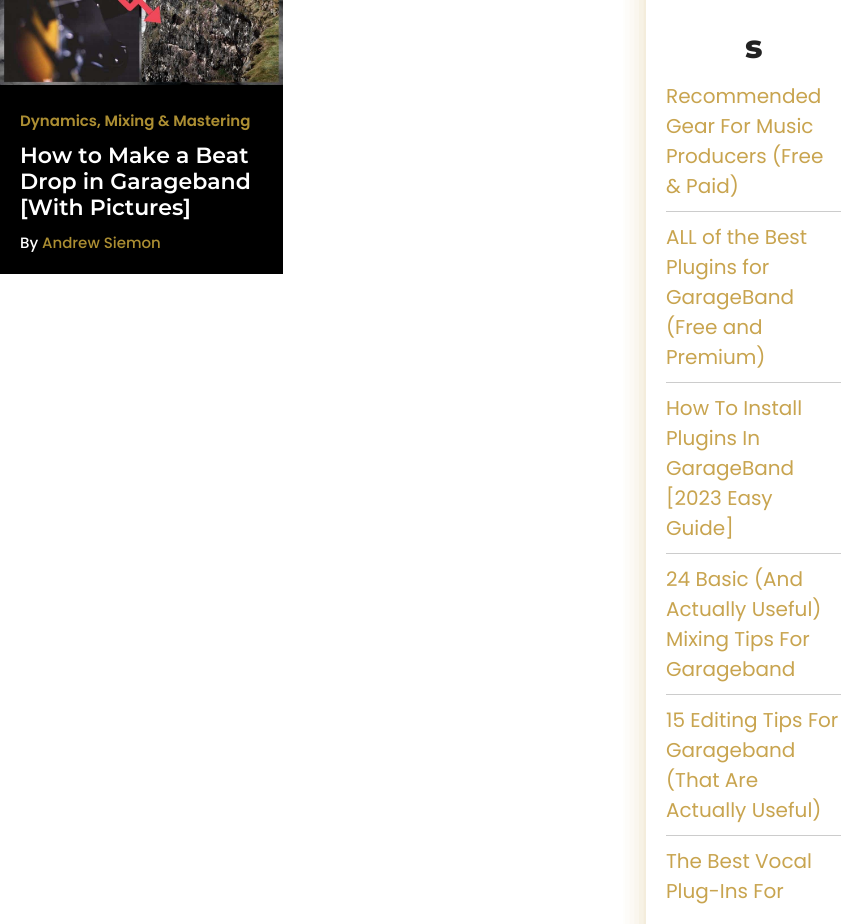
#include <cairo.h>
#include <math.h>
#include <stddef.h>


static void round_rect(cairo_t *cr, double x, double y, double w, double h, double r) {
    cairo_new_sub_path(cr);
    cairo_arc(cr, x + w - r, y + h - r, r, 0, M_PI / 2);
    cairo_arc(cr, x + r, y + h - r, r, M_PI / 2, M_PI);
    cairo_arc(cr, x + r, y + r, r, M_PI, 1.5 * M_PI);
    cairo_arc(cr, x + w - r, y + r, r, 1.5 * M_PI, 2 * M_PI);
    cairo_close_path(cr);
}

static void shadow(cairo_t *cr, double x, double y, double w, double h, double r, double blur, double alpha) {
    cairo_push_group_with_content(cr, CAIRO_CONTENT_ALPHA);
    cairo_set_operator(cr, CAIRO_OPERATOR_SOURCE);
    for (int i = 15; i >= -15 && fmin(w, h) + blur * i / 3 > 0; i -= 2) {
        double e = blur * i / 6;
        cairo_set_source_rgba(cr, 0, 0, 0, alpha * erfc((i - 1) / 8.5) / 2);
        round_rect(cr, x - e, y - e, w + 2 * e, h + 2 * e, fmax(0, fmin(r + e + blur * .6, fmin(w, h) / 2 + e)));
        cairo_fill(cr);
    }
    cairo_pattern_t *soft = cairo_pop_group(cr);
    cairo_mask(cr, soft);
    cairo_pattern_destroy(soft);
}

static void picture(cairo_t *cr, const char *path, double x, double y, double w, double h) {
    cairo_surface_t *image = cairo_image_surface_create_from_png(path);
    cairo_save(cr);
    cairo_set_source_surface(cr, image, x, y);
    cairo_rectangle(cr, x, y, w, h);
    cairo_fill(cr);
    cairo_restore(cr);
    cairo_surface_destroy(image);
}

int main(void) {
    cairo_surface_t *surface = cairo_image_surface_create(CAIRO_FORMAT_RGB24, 861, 924);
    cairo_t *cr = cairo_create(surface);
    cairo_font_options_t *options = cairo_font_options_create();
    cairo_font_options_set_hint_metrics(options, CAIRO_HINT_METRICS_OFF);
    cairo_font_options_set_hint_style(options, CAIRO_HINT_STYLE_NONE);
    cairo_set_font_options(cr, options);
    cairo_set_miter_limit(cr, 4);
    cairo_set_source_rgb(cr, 1, 1, 1);
    cairo_paint(cr);
    cairo_set_source_rgb(cr, 0, 0, 0);
    cairo_rectangle(cr, 0, 85, 283, 189);
    cairo_fill(cr);
    picture(cr, "img1.png", 0, 0, 283, 85);
    cairo_select_font_face(cr, "Poppins SemiBold", CAIRO_FONT_SLANT_NORMAL, CAIRO_FONT_WEIGHT_NORMAL);
    cairo_set_font_size(cr, 15);
    cairo_set_source_rgb(cr, 0.675, 0.557, 0.196);
    cairo_move_to(cr, 20, 126);
    cairo_show_text(cr, "Dynamics, Mixing & Mastering");
    cairo_select_font_face(cr, "Montserrat SemiBold", CAIRO_FONT_SLANT_NORMAL, CAIRO_FONT_WEIGHT_NORMAL);
    cairo_set_font_size(cr, 22);
    cairo_set_source_rgb(cr, 1, 1, 1);
    cairo_move_to(cr, 20, 163);
    cairo_show_text(cr, "How to Make a Beat");
    cairo_move_to(cr, 20, 189);
    cairo_show_text(cr, "Drop in Garageband");
    cairo_move_to(cr, 20, 215);
    cairo_show_text(cr, "[With Pictures]");
    cairo_select_font_face(cr, "Poppins Medium", CAIRO_FONT_SLANT_NORMAL, CAIRO_FONT_WEIGHT_NORMAL);
    cairo_set_font_size(cr, 15);
    cairo_move_to(cr, 20, 248);
    cairo_show_text(cr, "By");
    cairo_set_source_rgb(cr, 0.675, 0.557, 0.196);
    cairo_move_to(cr, 42, 248);
    cairo_show_text(cr, "Andrew Siemon");
    cairo_save(cr);
    cairo_rectangle(cr, 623, 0, 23, 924);
    cairo_clip(cr);
    cairo_set_source_rgb(cr, 0.784, 0.643, 0.31);
    shadow(cr, 646, -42, 215, 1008, 0, 14, 0.4);
    cairo_restore(cr);
    cairo_select_font_face(cr, "Montserrat ExtraBold", CAIRO_FONT_SLANT_NORMAL, CAIRO_FONT_WEIGHT_NORMAL);
    cairo_set_font_size(cr, 32);
    cairo_set_source_rgb(cr, 0.133, 0.133, 0.133);
    cairo_move_to(cr, 745, 58);
    cairo_show_text(cr, "s");
    cairo_set_source_rgb(cr, 0.8, 0.8, 0.8);
    cairo_rectangle(cr, 666, 211, 175, 1);
    cairo_fill(cr);
    cairo_select_font_face(cr, "Poppins", CAIRO_FONT_SLANT_NORMAL, CAIRO_FONT_WEIGHT_NORMAL);
    cairo_set_font_size(cr, 20);
    cairo_set_source_rgb(cr, 0.784, 0.643, 0.31);
    cairo_move_to(cr, 666, 103);
    cairo_show_text(cr, "Recommended");
    cairo_move_to(cr, 666, 133);
    cairo_show_text(cr, "Gear For Music");
    cairo_move_to(cr, 666, 163);
    cairo_show_text(cr, "Producers (Free");
    cairo_move_to(cr, 666, 193);
    cairo_show_text(cr, "& Paid)");
    cairo_set_source_rgb(cr, 0.8, 0.8, 0.8);
    cairo_rectangle(cr, 666, 382, 175, 1);
    cairo_fill(cr);
    cairo_set_source_rgb(cr, 0.784, 0.643, 0.31);
    cairo_move_to(cr, 666, 244);
    cairo_show_text(cr, "ALL of the Best");
    cairo_move_to(cr, 666, 274);
    cairo_show_text(cr, "Plugins for");
    cairo_move_to(cr, 666, 304);
    cairo_show_text(cr, "GarageBand");
    cairo_move_to(cr, 666, 334);
    cairo_show_text(cr, "(Free and");
    cairo_move_to(cr, 666, 364);
    cairo_show_text(cr, "Premium)");
    cairo_set_source_rgb(cr, 0.8, 0.8, 0.8);
    cairo_rectangle(cr, 666, 553, 175, 1);
    cairo_fill(cr);
    cairo_set_source_rgb(cr, 0.784, 0.643, 0.31);
    cairo_move_to(cr, 666, 415);
    cairo_show_text(cr, "How To Install");
    cairo_move_to(cr, 666, 445);
    cairo_show_text(cr, "Plugins In");
    cairo_move_to(cr, 666, 475);
    cairo_show_text(cr, "GarageBand");
    cairo_move_to(cr, 666, 505);
    cairo_show_text(cr, "[2023 Easy");
    cairo_move_to(cr, 666, 535);
    cairo_show_text(cr, "Guide]");
    cairo_set_source_rgb(cr, 0.8, 0.8, 0.8);
    cairo_rectangle(cr, 666, 694, 175, 1);
    cairo_fill(cr);
    cairo_set_source_rgb(cr, 0.784, 0.643, 0.31);
    cairo_move_to(cr, 666, 586);
    cairo_show_text(cr, "24 Basic (And");
    cairo_move_to(cr, 666, 616);
    cairo_show_text(cr, "Actually Useful)");
    cairo_move_to(cr, 666, 646);
    cairo_show_text(cr, "Mixing Tips For");
    cairo_move_to(cr, 666, 676);
    cairo_show_text(cr, "Garageband");
    cairo_set_source_rgb(cr, 0.8, 0.8, 0.8);
    cairo_rectangle(cr, 666, 835, 175, 1);
    cairo_fill(cr);
    cairo_set_source_rgb(cr, 0.784, 0.643, 0.31);
    cairo_move_to(cr, 666, 727);
    cairo_show_text(cr, "15 Editing Tips For");
    cairo_move_to(cr, 666, 757);
    cairo_show_text(cr, "Garageband");
    cairo_move_to(cr, 666, 787);
    cairo_show_text(cr, "(That Are");
    cairo_move_to(cr, 666, 817);
    cairo_show_text(cr, "Actually Useful)");
    cairo_move_to(cr, 666, 868);
    cairo_show_text(cr, "The Best Vocal");
    cairo_move_to(cr, 666, 898);
    cairo_show_text(cr, "Plug-Ins For");
    cairo_surface_write_to_png(surface, "page.png");
    cairo_font_options_destroy(options);
    cairo_destroy(cr);
    cairo_surface_destroy(surface);
    return 0;
}
